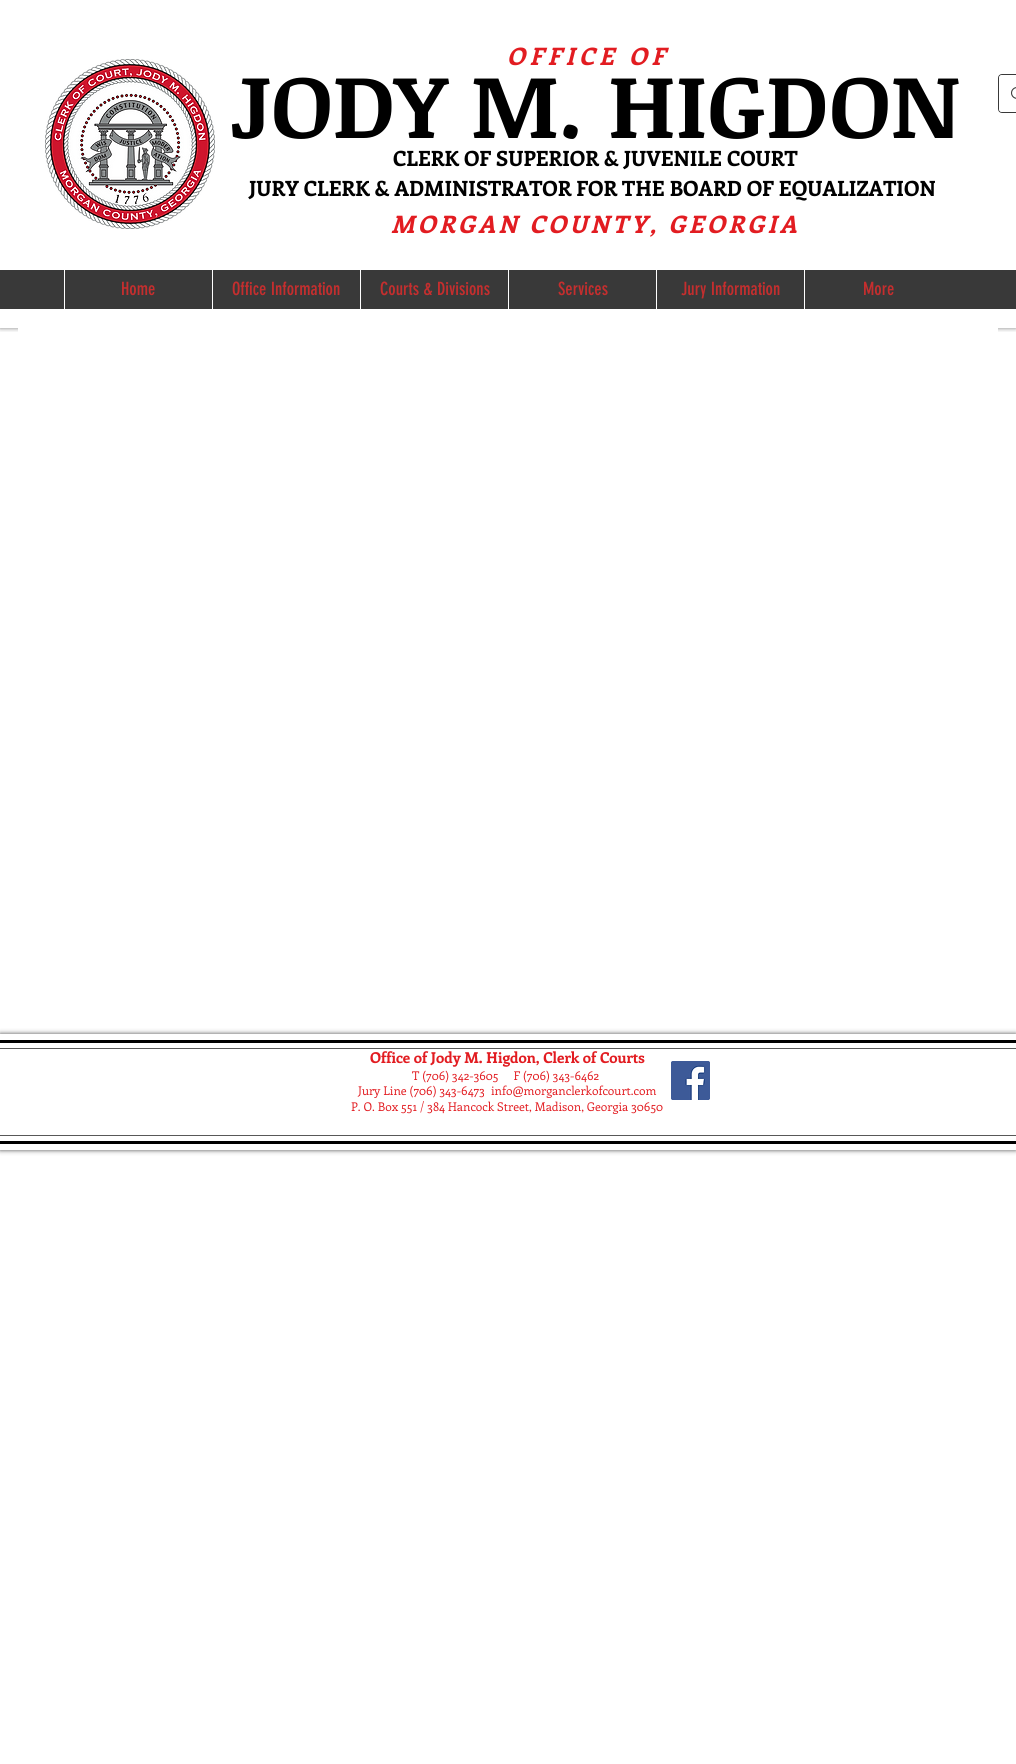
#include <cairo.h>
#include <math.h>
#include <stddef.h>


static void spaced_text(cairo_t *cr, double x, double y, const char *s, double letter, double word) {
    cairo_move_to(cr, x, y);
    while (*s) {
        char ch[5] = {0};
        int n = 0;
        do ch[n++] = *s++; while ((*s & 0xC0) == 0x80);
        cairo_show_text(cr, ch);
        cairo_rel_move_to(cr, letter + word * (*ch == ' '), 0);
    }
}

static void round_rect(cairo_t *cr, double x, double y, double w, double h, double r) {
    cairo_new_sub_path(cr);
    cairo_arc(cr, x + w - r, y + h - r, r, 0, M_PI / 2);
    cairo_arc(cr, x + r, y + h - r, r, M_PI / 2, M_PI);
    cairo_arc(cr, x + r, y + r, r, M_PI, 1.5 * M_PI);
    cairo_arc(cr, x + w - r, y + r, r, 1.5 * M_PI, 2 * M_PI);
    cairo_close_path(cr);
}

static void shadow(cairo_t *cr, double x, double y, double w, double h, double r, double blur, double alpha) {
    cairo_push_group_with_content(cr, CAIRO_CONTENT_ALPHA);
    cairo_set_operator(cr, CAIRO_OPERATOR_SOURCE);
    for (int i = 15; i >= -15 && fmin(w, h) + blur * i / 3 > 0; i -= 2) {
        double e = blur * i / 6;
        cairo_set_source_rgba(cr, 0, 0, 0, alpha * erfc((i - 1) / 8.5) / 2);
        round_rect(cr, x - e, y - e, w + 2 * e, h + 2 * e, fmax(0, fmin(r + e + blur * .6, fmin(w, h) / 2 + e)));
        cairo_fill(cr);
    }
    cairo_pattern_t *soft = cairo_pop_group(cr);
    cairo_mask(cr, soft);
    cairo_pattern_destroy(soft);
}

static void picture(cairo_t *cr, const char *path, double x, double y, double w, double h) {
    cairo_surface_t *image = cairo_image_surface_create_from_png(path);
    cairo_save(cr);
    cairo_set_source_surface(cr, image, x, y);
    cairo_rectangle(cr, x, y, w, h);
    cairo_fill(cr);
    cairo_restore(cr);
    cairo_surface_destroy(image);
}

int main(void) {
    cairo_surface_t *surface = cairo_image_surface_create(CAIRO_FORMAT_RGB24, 1016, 1764);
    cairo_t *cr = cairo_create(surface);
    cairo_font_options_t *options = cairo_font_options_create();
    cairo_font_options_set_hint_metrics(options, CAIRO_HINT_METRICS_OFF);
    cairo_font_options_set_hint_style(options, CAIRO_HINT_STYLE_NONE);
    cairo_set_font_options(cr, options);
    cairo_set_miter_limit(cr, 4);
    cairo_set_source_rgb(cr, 1, 1, 1);
    cairo_paint(cr);
    cairo_save(cr);
    cairo_rectangle(cr, 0, 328, 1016, 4);
    cairo_clip(cr);
    cairo_set_source_rgb(cr, 0, 0, 0);
    shadow(cr, 0, 0, 1016, 328, 0, 2.5, 0.5);
    cairo_restore(cr);
    cairo_select_font_face(cr, "Enriqueta", CAIRO_FONT_SLANT_ITALIC, CAIRO_FONT_WEIGHT_BOLD);
    cairo_set_font_size(cr, 24);
    cairo_set_source_rgb(cr, 0.886, 0.11, 0.129);
    spaced_text(cr, 507, 65, "OFFICE OF", 4.75, 0);
    picture(cr, "img1.png", 45, 59, 170, 170);
    cairo_select_font_face(cr, "Noticia Text", CAIRO_FONT_SLANT_NORMAL, CAIRO_FONT_WEIGHT_BOLD);
    cairo_set_font_size(cr, 90);
    cairo_set_source_rgb(cr, 0, 0, 0);
    cairo_move_to(cr, 231, 138);
    cairo_show_text(cr, "JODY M. HIGDON");
    cairo_select_font_face(cr, "Enriqueta", CAIRO_FONT_SLANT_NORMAL, CAIRO_FONT_WEIGHT_BOLD);
    cairo_set_font_size(cr, 21);
    cairo_move_to(cr, 393, 166);
    cairo_show_text(cr, "CLERK OF SUPERIOR & JUVENILE COURT");
    cairo_move_to(cr, 249, 196);
    cairo_show_text(cr, "JURY CLERK & ADMINISTRATOR FOR THE BOARD OF EQUALIZATION");
    cairo_select_font_face(cr, "Enriqueta", CAIRO_FONT_SLANT_ITALIC, CAIRO_FONT_WEIGHT_BOLD);
    cairo_set_font_size(cr, 24);
    cairo_set_source_rgb(cr, 0.886, 0.11, 0.129);
    spaced_text(cr, 391, 233, "MORGAN COUNTY, GEORGIA", 3.5, 0);
    round_rect(cr, 998.5, 74.5, 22, 38, 3.5);
    cairo_set_source_rgb(cr, 0.224, 0.224, 0.224);
    cairo_set_line_width(cr, 1);
    cairo_stroke(cr);
    cairo_set_source_rgb(cr, 1, 1, 1);
    round_rect(cr, 999, 75, 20, 37, 3);
    cairo_fill(cr);
    picture(cr, "img2.png", 1011, 87, 5, 12);
    cairo_set_source_rgb(cr, 0.224, 0.224, 0.224);
    cairo_rectangle(cr, 0, 270, 1016, 39);
    cairo_fill(cr);
    cairo_set_source_rgb(cr, 1, 1, 1);
    cairo_rectangle(cr, 64, 270, 1, 39);
    cairo_fill(cr);
    cairo_select_font_face(cr, "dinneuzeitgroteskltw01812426", CAIRO_FONT_SLANT_NORMAL, CAIRO_FONT_WEIGHT_NORMAL);
    cairo_set_font_size(cr, 18);
    cairo_set_source_rgb(cr, 0.773, 0.18, 0.18);
    cairo_move_to(cr, 121, 295);
    cairo_show_text(cr, "Home");
    cairo_set_source_rgb(cr, 1, 1, 1);
    cairo_rectangle(cr, 212, 270, 1, 39);
    cairo_fill(cr);
    cairo_set_source_rgb(cr, 0.773, 0.18, 0.18);
    cairo_move_to(cr, 232, 295);
    cairo_show_text(cr, "Office Information");
    cairo_set_source_rgb(cr, 1, 1, 1);
    cairo_rectangle(cr, 360, 270, 1, 39);
    cairo_fill(cr);
    cairo_set_source_rgb(cr, 0.773, 0.18, 0.18);
    cairo_move_to(cr, 380, 295);
    cairo_show_text(cr, "Courts & Divisions");
    cairo_set_source_rgb(cr, 1, 1, 1);
    cairo_rectangle(cr, 508, 270, 1, 39);
    cairo_fill(cr);
    cairo_set_source_rgb(cr, 0.773, 0.18, 0.18);
    cairo_move_to(cr, 558, 295);
    cairo_show_text(cr, "Services");
    cairo_set_source_rgb(cr, 1, 1, 1);
    cairo_rectangle(cr, 656, 270, 1, 39);
    cairo_fill(cr);
    cairo_set_source_rgb(cr, 0.773, 0.18, 0.18);
    cairo_move_to(cr, 681, 295);
    cairo_show_text(cr, "Jury Information");
    cairo_set_source_rgb(cr, 1, 1, 1);
    cairo_rectangle(cr, 804, 270, 1, 39);
    cairo_fill(cr);
    cairo_set_source_rgb(cr, 0.773, 0.18, 0.18);
    cairo_move_to(cr, 863, 295);
    cairo_show_text(cr, "More");
    cairo_set_source_rgb(cr, 1, 1, 1);
    cairo_rectangle(cr, 18, 328, 980, 5);
    cairo_fill(cr);
    cairo_save(cr);
    cairo_set_fill_rule(cr, CAIRO_FILL_RULE_EVEN_ODD);
    cairo_new_path(cr);
    cairo_move_to(cr, 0, 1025);
    cairo_line_to(cr, 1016, 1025);
    cairo_line_to(cr, 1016, 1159);
    cairo_line_to(cr, 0, 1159);
    cairo_close_path(cr);
    cairo_move_to(cr, 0, 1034);
    cairo_line_to(cr, 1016, 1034);
    cairo_line_to(cr, 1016, 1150);
    cairo_line_to(cr, 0, 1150);
    cairo_close_path(cr);
    cairo_clip(cr);
    cairo_set_source_rgb(cr, 0, 0, 0);
    shadow(cr, 0, 1034, 1016, 116, 0, 2.5, 0.7);
    cairo_restore(cr);
    cairo_set_source_rgb(cr, 0, 0, 0);
    cairo_rectangle(cr, 0, 1040, 1016, 3);
    cairo_fill(cr);
    cairo_rectangle(cr, 0, 1141, 1016, 3);
    cairo_fill(cr);
    cairo_set_source_rgb(cr, 0.345, 0.345, 0.345);
    cairo_rectangle(cr, 0, 1048, 1016, 1);
    cairo_fill(cr);
    cairo_rectangle(cr, 0, 1135, 1016, 1);
    cairo_fill(cr);
    cairo_select_font_face(cr, "Enriqueta", CAIRO_FONT_SLANT_NORMAL, CAIRO_FONT_WEIGHT_BOLD);
    cairo_set_font_size(cr, 15);
    cairo_set_source_rgb(cr, 0.886, 0.11, 0.129);
    cairo_move_to(cr, 370, 1063);
    cairo_show_text(cr, "Office of Jody M. Higdon, Clerk of Courts");
    cairo_select_font_face(cr, "Enriqueta", CAIRO_FONT_SLANT_NORMAL, CAIRO_FONT_WEIGHT_NORMAL);
    cairo_set_font_size(cr, 12);
    cairo_move_to(cr, 412, 1080);
    cairo_show_text(cr, "T (706) 342-3605     F (706) 343-6462");
    cairo_move_to(cr, 358, 1095);
    cairo_show_text(cr, "Jury Line (706) 343-6473");
    cairo_move_to(cr, 491, 1095);
    cairo_show_text(cr, "info@morganclerkofcourt.com");
    cairo_move_to(cr, 351, 1111);
    cairo_show_text(cr, "P. O. Box 551 / 384 Hancock Street, Madison, Georgia 30650");
    picture(cr, "img3.png", 671, 1061, 39, 39);
    cairo_surface_write_to_png(surface, "page.png");
    cairo_font_options_destroy(options);
    cairo_destroy(cr);
    cairo_surface_destroy(surface);
    return 0;
}
